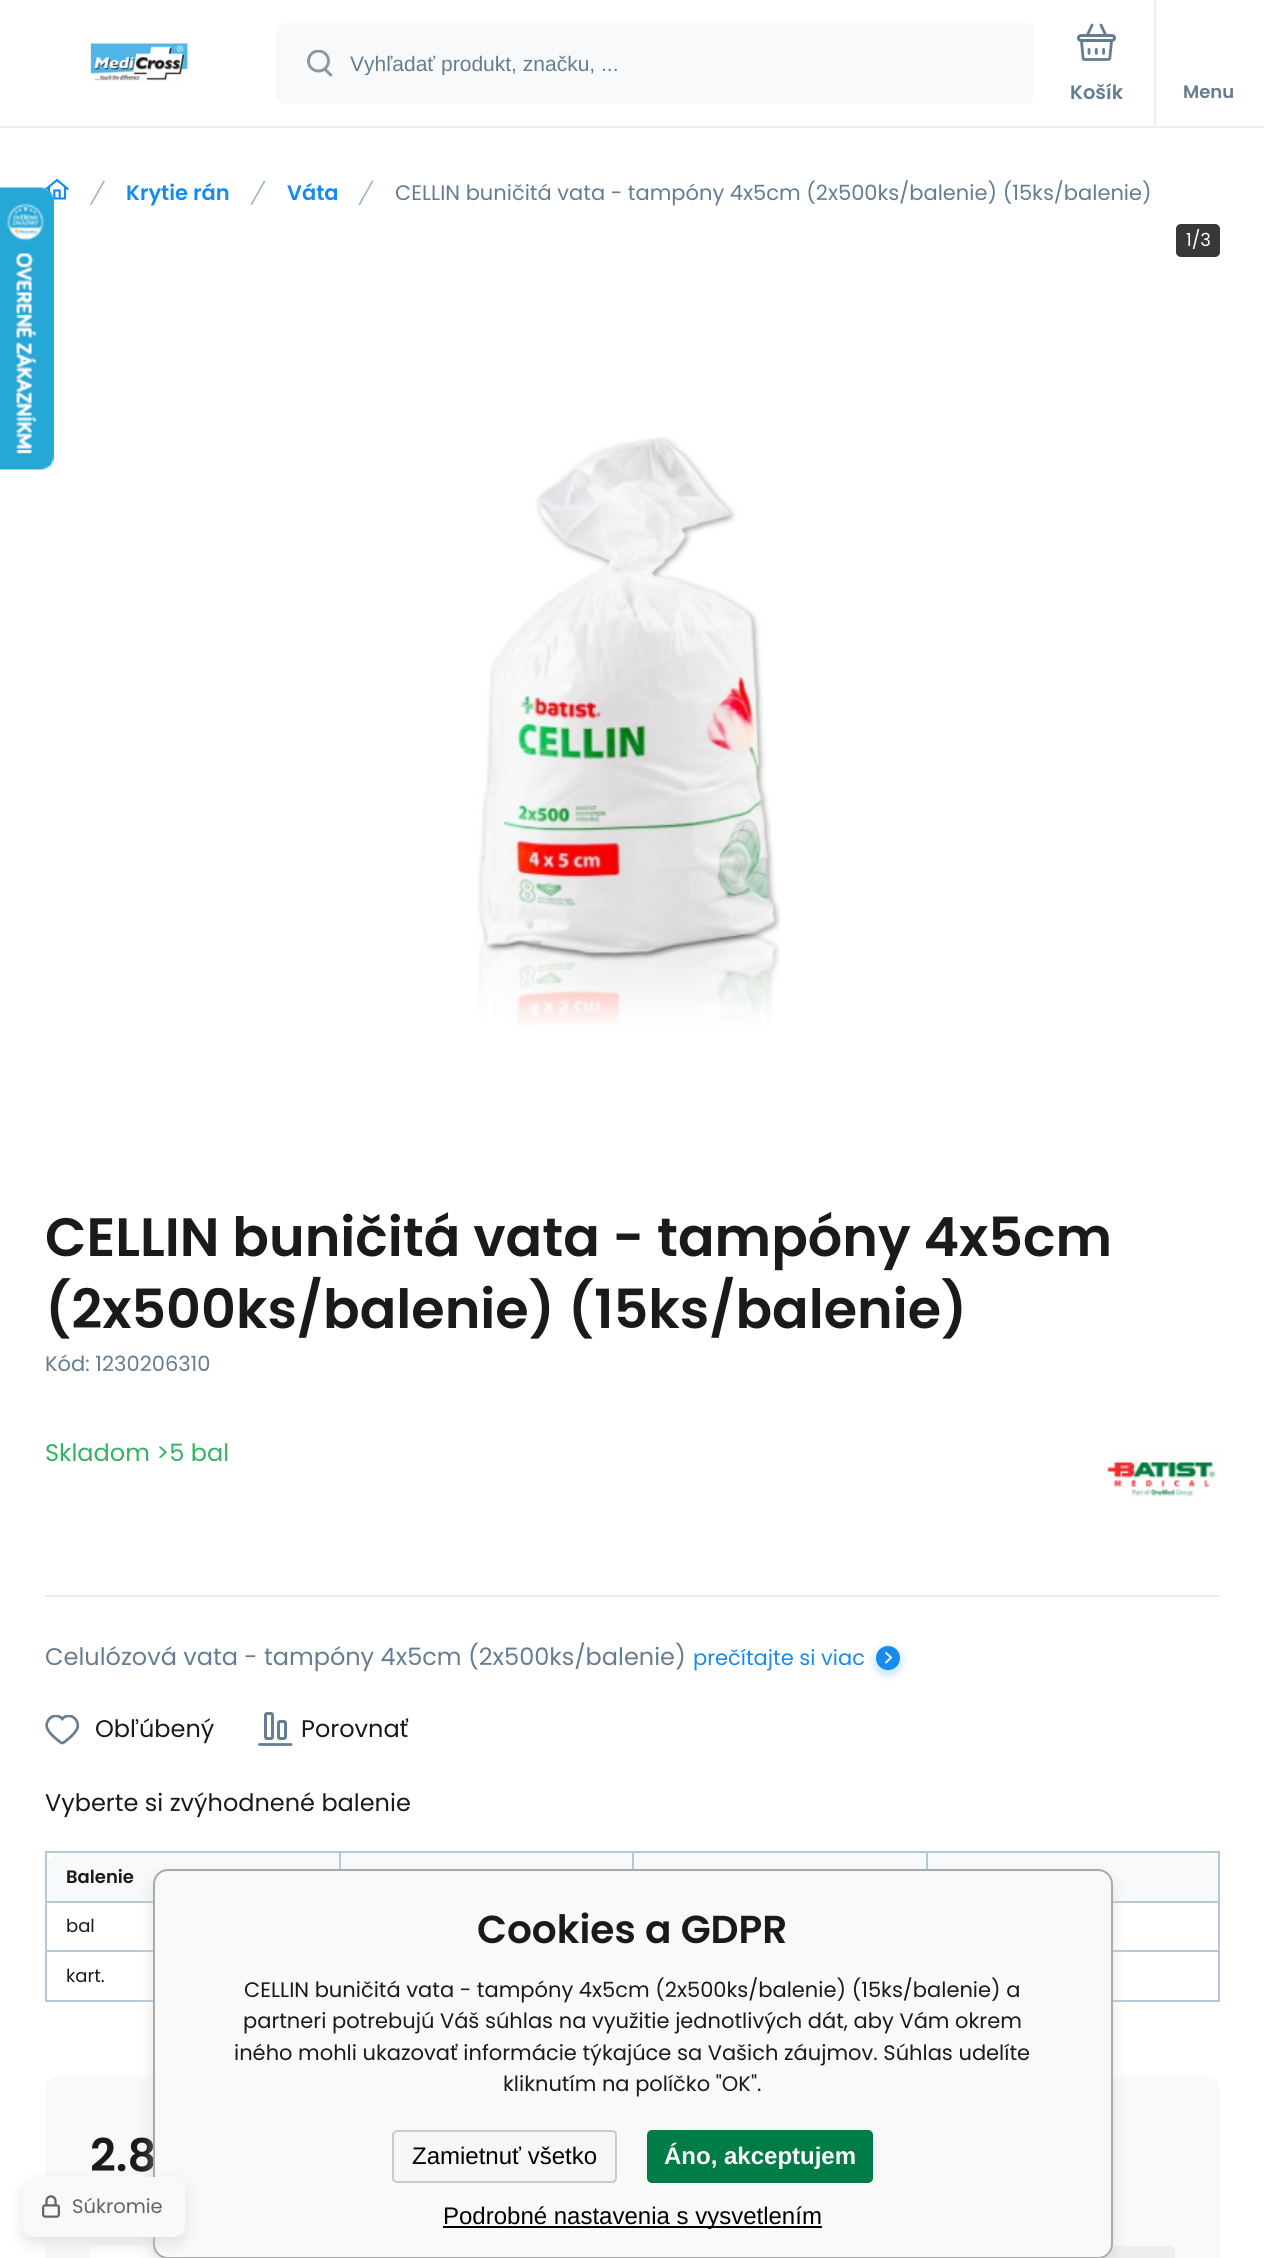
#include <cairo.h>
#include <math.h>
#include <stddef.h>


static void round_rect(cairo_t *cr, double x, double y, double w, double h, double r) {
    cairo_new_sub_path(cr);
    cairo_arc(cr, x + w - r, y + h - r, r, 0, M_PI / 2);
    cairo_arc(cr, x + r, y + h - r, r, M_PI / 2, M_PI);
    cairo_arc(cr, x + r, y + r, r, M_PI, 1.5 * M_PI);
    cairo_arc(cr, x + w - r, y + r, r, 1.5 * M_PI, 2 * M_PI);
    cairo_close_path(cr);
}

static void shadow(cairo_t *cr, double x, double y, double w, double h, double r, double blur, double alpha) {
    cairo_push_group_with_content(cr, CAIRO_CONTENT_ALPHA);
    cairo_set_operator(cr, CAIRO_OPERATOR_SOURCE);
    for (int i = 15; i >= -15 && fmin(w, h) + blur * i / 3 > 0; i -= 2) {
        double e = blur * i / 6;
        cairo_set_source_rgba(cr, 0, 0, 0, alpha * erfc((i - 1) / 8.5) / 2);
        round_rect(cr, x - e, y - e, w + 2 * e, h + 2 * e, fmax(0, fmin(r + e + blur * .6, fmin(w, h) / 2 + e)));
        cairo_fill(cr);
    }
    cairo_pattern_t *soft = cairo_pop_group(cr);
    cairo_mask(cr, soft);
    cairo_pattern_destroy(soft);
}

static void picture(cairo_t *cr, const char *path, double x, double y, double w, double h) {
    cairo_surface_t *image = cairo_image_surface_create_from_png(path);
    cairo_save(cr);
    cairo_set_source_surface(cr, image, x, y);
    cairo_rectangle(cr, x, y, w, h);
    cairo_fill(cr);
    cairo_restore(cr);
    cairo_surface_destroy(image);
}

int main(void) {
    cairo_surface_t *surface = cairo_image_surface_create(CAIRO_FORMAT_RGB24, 1264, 2258);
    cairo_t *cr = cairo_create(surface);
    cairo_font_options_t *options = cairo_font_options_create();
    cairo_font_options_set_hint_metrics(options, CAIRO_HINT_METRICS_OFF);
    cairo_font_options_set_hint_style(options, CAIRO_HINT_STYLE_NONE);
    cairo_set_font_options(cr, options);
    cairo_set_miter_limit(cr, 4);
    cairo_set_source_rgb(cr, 1, 1, 1);
    cairo_paint(cr);
    picture(cr, "img5.png", 45, 179, 24, 21);
    picture(cr, "img1.png", 0, 187, 54, 283);
    cairo_set_source_rgb(cr, 0.925, 0.929, 0.937);
    cairo_rectangle(cr, 0, 126, 1264, 2);
    cairo_fill(cr);
    picture(cr, "img2.png", 90, 43, 98, 38);
    cairo_set_source_rgb(cr, 0.969, 0.973, 0.98);
    round_rect(cr, 276, 23, 758, 81, 9);
    cairo_fill(cr);
    picture(cr, "img3.png", 307, 50, 26, 27);
    cairo_save(cr);
    cairo_rectangle(cr, 350, 51, 519, 24);
    cairo_clip(cr);
    cairo_select_font_face(cr, "Liberation Sans", CAIRO_FONT_SLANT_NORMAL, CAIRO_FONT_WEIGHT_NORMAL);
    cairo_set_font_size(cr, 21);
    cairo_set_source_rgb(cr, 0.396, 0.49, 0.573);
    cairo_move_to(cr, 350, 71);
    cairo_show_text(cr, "Vyhľadať produkt, značku, ...");
    cairo_restore(cr);
    picture(cr, "img4.png", 1077, 23, 39, 38);
    cairo_select_font_face(cr, "Poppins SemiBold", CAIRO_FONT_SLANT_NORMAL, CAIRO_FONT_WEIGHT_NORMAL);
    cairo_set_font_size(cr, 19.5);
    cairo_set_source_rgb(cr, 0.396, 0.49, 0.573);
    cairo_move_to(cr, 1070, 99);
    cairo_show_text(cr, "Košík");
    cairo_set_source_rgb(cr, 0.925, 0.929, 0.937);
    cairo_rectangle(cr, 1154, 0, 2, 126);
    cairo_fill(cr);
    cairo_set_font_size(cr, 18);
    cairo_set_source_rgb(cr, 0.396, 0.49, 0.573);
    cairo_move_to(cr, 1183, 98);
    cairo_show_text(cr, "Menu");
    cairo_set_source_rgb(cr, 0.596, 0.694, 0.78);
    cairo_new_path(cr);
    cairo_move_to(cr, 90, 204.5);
    cairo_line_to(cr, 103.5, 180.5);
    cairo_line_to(cr, 105, 181);
    cairo_line_to(cr, 91.5, 205);
    cairo_close_path(cr);
    cairo_fill(cr);
    cairo_set_font_size(cr, 21);
    cairo_set_source_rgb(cr, 0.09, 0.541, 0.937);
    cairo_move_to(cr, 126, 200);
    cairo_show_text(cr, "Krytie rán");
    cairo_set_source_rgb(cr, 0.596, 0.694, 0.78);
    cairo_new_path(cr);
    cairo_move_to(cr, 250.5, 204.5);
    cairo_line_to(cr, 264, 180.5);
    cairo_line_to(cr, 265.5, 181);
    cairo_line_to(cr, 252, 205);
    cairo_close_path(cr);
    cairo_fill(cr);
    cairo_set_source_rgb(cr, 0.09, 0.541, 0.937);
    cairo_move_to(cr, 287, 200);
    cairo_show_text(cr, "Váta");
    cairo_set_source_rgb(cr, 0.596, 0.694, 0.78);
    cairo_new_path(cr);
    cairo_move_to(cr, 358.5, 204.5);
    cairo_line_to(cr, 372, 180.5);
    cairo_line_to(cr, 373.5, 181);
    cairo_line_to(cr, 360, 205);
    cairo_close_path(cr);
    cairo_fill(cr);
    cairo_select_font_face(cr, "Poppins", CAIRO_FONT_SLANT_NORMAL, CAIRO_FONT_WEIGHT_NORMAL);
    cairo_set_source_rgb(cr, 0.396, 0.49, 0.573);
    cairo_move_to(cr, 395, 200);
    cairo_show_text(cr, "CELLIN buničitá vata - tampóny 4x5cm (2x500ks/balenie) (15ks/balenie)");
    cairo_set_source_rgb(cr, 0.22, 0.22, 0.22);
    round_rect(cr, 1176, 224, 44, 33, 5);
    cairo_fill(cr);
    cairo_set_font_size(cr, 18);
    cairo_set_source_rgb(cr, 1, 1, 1);
    cairo_move_to(cr, 1186, 246);
    cairo_show_text(cr, "1/3");
    picture(cr, "img6.png", 477, 436, 304, 590);
    cairo_select_font_face(cr, "Poppins SemiBold", CAIRO_FONT_SLANT_NORMAL, CAIRO_FONT_WEIGHT_NORMAL);
    cairo_set_font_size(cr, 54);
    cairo_set_source_rgb(cr, 0.102, 0.102, 0.102);
    cairo_move_to(cr, 45, 1256);
    cairo_show_text(cr, "CELLIN buničitá vata - tampóny 4x5cm");
    cairo_move_to(cr, 45, 1328);
    cairo_show_text(cr, "(2x500ks/balenie) (15ks/balenie)");
    cairo_select_font_face(cr, "Poppins", CAIRO_FONT_SLANT_NORMAL, CAIRO_FONT_WEIGHT_NORMAL);
    cairo_set_font_size(cr, 21);
    cairo_set_source_rgb(cr, 0.396, 0.49, 0.573);
    cairo_move_to(cr, 45, 1371);
    cairo_show_text(cr, "Kód: 1230206310");
    cairo_set_source_rgb(cr, 0.925, 0.929, 0.937);
    cairo_rectangle(cr, 45, 1595, 1175, 2);
    cairo_fill(cr);
    cairo_set_font_size(cr, 24);
    cairo_set_source_rgb(cr, 0.204, 0.698, 0.384);
    cairo_move_to(cr, 45, 1461);
    cairo_show_text(cr, "Skladom >5 bal");
    picture(cr, "img7.png", 1104, 1453, 115, 48);
    cairo_set_source_rgb(cr, 0.396, 0.49, 0.573);
    cairo_move_to(cr, 45, 1665);
    cairo_show_text(cr, "Celulózová vata - tampóny 4x5cm (2x500ks/balenie)");
    cairo_set_font_size(cr, 21);
    cairo_set_source_rgb(cr, 0.09, 0.541, 0.937);
    cairo_move_to(cr, 693, 1665);
    cairo_show_text(cr, "prečítajte si viac");
    cairo_set_source_rgb(cr, 0.09, 0.541, 0.937);
    shadow(cr, 876, 1649, 24, 24, 12, 4.5, 0.35);
    cairo_set_source_rgb(cr, 0.09, 0.541, 0.937);
    cairo_arc(cr, 888, 1658, 12, 0, 2 * M_PI);
    cairo_fill(cr);
    cairo_new_path(cr);
    cairo_move_to(cr, 885.5, 1663);
    cairo_line_to(cr, 891, 1657.5);
    cairo_line_to(cr, 885.5, 1652.5);
    cairo_set_source_rgb(cr, 1, 1, 1);
    cairo_set_line_width(cr, 1.9);
    cairo_stroke(cr);
    picture(cr, "img8.png", 45, 1715, 35, 30);
    cairo_set_font_size(cr, 24);
    cairo_set_source_rgb(cr, 0.102, 0.102, 0.102);
    cairo_move_to(cr, 95, 1737);
    cairo_show_text(cr, "Obľúbený");
    round_rect(cr, 265.5, 1713.5, 7, 25, 1.5);
    cairo_set_source_rgb(cr, 0.396, 0.49, 0.573);
    cairo_set_line_width(cr, 3);
    cairo_stroke(cr);
    round_rect(cr, 278.5, 1721.5, 7, 17, 1.5);
    cairo_stroke(cr);
    cairo_new_path(cr);
    cairo_move_to(cr, 291, 1744.5);
    cairo_line_to(cr, 259.5, 1744.5);
    cairo_set_line_width(cr, 2.8);
    cairo_set_line_cap(cr, CAIRO_LINE_CAP_ROUND);
    cairo_stroke(cr);
    cairo_set_source_rgb(cr, 0.102, 0.102, 0.102);
    cairo_move_to(cr, 301, 1737);
    cairo_show_text(cr, "Porovnať");
    cairo_move_to(cr, 45, 1811);
    cairo_show_text(cr, "Vyberte si zvýhodnené balenie");
    cairo_set_source_rgb(cr, 0.714, 0.784, 0.847);
    cairo_rectangle(cr, 45, 1851, 1175, 2);
    cairo_fill(cr);
    cairo_rectangle(cr, 1218, 1851, 2, 150);
    cairo_fill(cr);
    cairo_rectangle(cr, 45, 2000, 1175, 2);
    cairo_fill(cr);
    cairo_rectangle(cr, 45, 1851, 2, 150);
    cairo_fill(cr);
    cairo_set_source_rgb(cr, 0.969, 0.973, 0.98);
    cairo_new_path(cr);
    cairo_move_to(cr, 61, 1853);
    cairo_line_to(cr, 339, 1853);
    cairo_line_to(cr, 339, 1902);
    cairo_line_to(cr, 47, 1902);
    cairo_line_to(cr, 47, 1867);
    cairo_curve_to(cr, 47, 1859.5, 53.5, 1853, 61, 1853);
    cairo_close_path(cr);
    cairo_fill(cr);
    cairo_select_font_face(cr, "Poppins SemiBold", CAIRO_FONT_SLANT_NORMAL, CAIRO_FONT_WEIGHT_NORMAL);
    cairo_set_font_size(cr, 18);
    cairo_set_source_rgb(cr, 0.102, 0.102, 0.102);
    cairo_move_to(cr, 66, 1883);
    cairo_show_text(cr, "Balenie");
    cairo_set_source_rgb(cr, 0.969, 0.973, 0.98);
    cairo_rectangle(cr, 341, 1853, 291, 16);
    cairo_fill(cr);
    cairo_set_source_rgb(cr, 0.714, 0.784, 0.847);
    cairo_rectangle(cr, 339, 1853, 2, 16);
    cairo_fill(cr);
    cairo_set_source_rgb(cr, 0.969, 0.973, 0.98);
    cairo_rectangle(cr, 634, 1853, 292, 16);
    cairo_fill(cr);
    cairo_set_source_rgb(cr, 0.714, 0.784, 0.847);
    cairo_rectangle(cr, 632, 1853, 2, 16);
    cairo_fill(cr);
    cairo_set_source_rgb(cr, 0.969, 0.973, 0.98);
    cairo_new_path(cr);
    cairo_move_to(cr, 926, 1853);
    cairo_line_to(cr, 1204, 1853);
    cairo_curve_to(cr, 1211.5, 1853, 1218, 1859.5, 1218, 1867);
    cairo_line_to(cr, 1218, 1902);
    cairo_line_to(cr, 926, 1902);
    cairo_close_path(cr);
    cairo_fill(cr);
    cairo_set_source_rgb(cr, 0.714, 0.784, 0.847);
    cairo_rectangle(cr, 926, 1853, 2, 16);
    cairo_fill(cr);
    cairo_rectangle(cr, 1113, 1901, 105, 2);
    cairo_fill(cr);
    cairo_rectangle(cr, 47, 1901, 106, 2);
    cairo_fill(cr);
    cairo_select_font_face(cr, "Poppins", CAIRO_FONT_SLANT_NORMAL, CAIRO_FONT_WEIGHT_NORMAL);
    cairo_set_source_rgb(cr, 0.102, 0.102, 0.102);
    cairo_move_to(cr, 66, 1932);
    cairo_show_text(cr, "bal");
    cairo_set_source_rgb(cr, 0.714, 0.784, 0.847);
    cairo_rectangle(cr, 1113, 1950, 105, 2);
    cairo_fill(cr);
    cairo_rectangle(cr, 47, 1950, 106, 2);
    cairo_fill(cr);
    cairo_set_source_rgb(cr, 0.102, 0.102, 0.102);
    cairo_move_to(cr, 66, 1982);
    cairo_show_text(cr, "kart.");
    cairo_set_source_rgb(cr, 0.969, 0.973, 0.98);
    round_rect(cr, 45, 2076, 1175, 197, 15);
    cairo_fill(cr);
    cairo_select_font_face(cr, "Poppins SemiBold", CAIRO_FONT_SLANT_NORMAL, CAIRO_FONT_WEIGHT_NORMAL);
    cairo_set_font_size(cr, 45);
    cairo_set_source_rgb(cr, 0.102, 0.102, 0.102);
    cairo_move_to(cr, 90, 2171);
    cairo_show_text(cr, "2.8");
    cairo_set_source_rgb(cr, 1, 1, 1);
    round_rect(cr, 90, 2246, 194, 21, 9);
    cairo_fill(cr);
    cairo_set_source_rgb(cr, 0.937, 0.937, 0.937);
    round_rect(cr, 306, 2246, 869, 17, 5);
    cairo_fill(cr);
    cairo_set_source_rgb(cr, 0.784, 0.784, 0.784);
    shadow(cr, 153, 1877, 960, 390, 15, 7.5, 0.5);
    cairo_set_source_rgb(cr, 0.973, 0.973, 0.973);
    round_rect(cr, 154, 1870, 958, 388, 14);
    cairo_fill_preserve(cr);
    cairo_set_source_rgb(cr, 0.667, 0.667, 0.667);
    cairo_set_line_width(cr, 2);
    cairo_set_line_cap(cr, CAIRO_LINE_CAP_BUTT);
    cairo_stroke(cr);
    cairo_set_source_rgb(cr, 0.784, 0.784, 0.784);
    shadow(cr, 23, 2184, 162, 60, 11, 7.5, 0.5);
    cairo_set_source_rgb(cr, 0.973, 0.973, 0.973);
    round_rect(cr, 23, 2177, 162, 60, 11);
    cairo_fill(cr);
    picture(cr, "img9.png", 42, 2195, 18, 23);
    cairo_select_font_face(cr, "Poppins", CAIRO_FONT_SLANT_NORMAL, CAIRO_FONT_WEIGHT_NORMAL);
    cairo_set_font_size(cr, 19.5);
    cairo_set_source_rgb(cr, 0.392, 0.392, 0.392);
    cairo_move_to(cr, 72, 2213);
    cairo_show_text(cr, "Súkromie");
    cairo_select_font_face(cr, "Poppins SemiBold", CAIRO_FONT_SLANT_NORMAL, CAIRO_FONT_WEIGHT_NORMAL);
    cairo_set_font_size(cr, 39);
    cairo_set_source_rgb(cr, 0.102, 0.102, 0.102);
    cairo_move_to(cr, 477, 1943);
    cairo_show_text(cr, "Cookies a GDPR");
    cairo_select_font_face(cr, "Poppins", CAIRO_FONT_SLANT_NORMAL, CAIRO_FONT_WEIGHT_NORMAL);
    cairo_set_font_size(cr, 21);
    cairo_move_to(cr, 244, 1997);
    cairo_show_text(cr, "CELLIN buničitá vata - tampóny 4x5cm (2x500ks/balenie) (15ks/balenie) a");
    cairo_move_to(cr, 243, 2028);
    cairo_show_text(cr, "partneri potrebujú Váš súhlas na využitie jednotlivých dát, aby Vám okrem");
    cairo_move_to(cr, 234, 2060);
    cairo_show_text(cr, "iného mohli ukazovať informácie týkajúce sa Vašich záujmov. Súhlas udelíte");
    cairo_move_to(cr, 503, 2091);
    cairo_show_text(cr, "kliknutím na políčko \"OK\".");
    cairo_set_source_rgb(cr, 0.961, 0.961, 0.961);
    round_rect(cr, 393, 2131, 223, 51, 4);
    cairo_fill_preserve(cr);
    cairo_set_source_rgb(cr, 0.792, 0.792, 0.792);
    cairo_stroke(cr);
    cairo_select_font_face(cr, "Liberation Sans", CAIRO_FONT_SLANT_NORMAL, CAIRO_FONT_WEIGHT_NORMAL);
    cairo_set_font_size(cr, 24);
    cairo_set_source_rgb(cr, 0, 0, 0);
    cairo_move_to(cr, 412, 2164);
    cairo_show_text(cr, "Zamietnuť všetko");
    cairo_set_source_rgb(cr, 0, 0.486, 0.278);
    round_rect(cr, 648, 2131, 224, 51, 4);
    cairo_fill_preserve(cr);
    cairo_stroke(cr);
    cairo_select_font_face(cr, "Liberation Sans", CAIRO_FONT_SLANT_NORMAL, CAIRO_FONT_WEIGHT_BOLD);
    cairo_set_source_rgb(cr, 1, 1, 1);
    cairo_move_to(cr, 664, 2164);
    cairo_show_text(cr, "Áno, akceptujem");
    cairo_set_source_rgb(cr, 0, 0, 0);
    cairo_rectangle(cr, 443, 2226, 379, 2);
    cairo_fill(cr);
    cairo_select_font_face(cr, "Liberation Sans", CAIRO_FONT_SLANT_NORMAL, CAIRO_FONT_WEIGHT_NORMAL);
    cairo_move_to(cr, 443, 2224);
    cairo_show_text(cr, "Podrobné nastavenia s vysvetlením");
    cairo_surface_write_to_png(surface, "page.png");
    cairo_font_options_destroy(options);
    cairo_destroy(cr);
    cairo_surface_destroy(surface);
    return 0;
}
